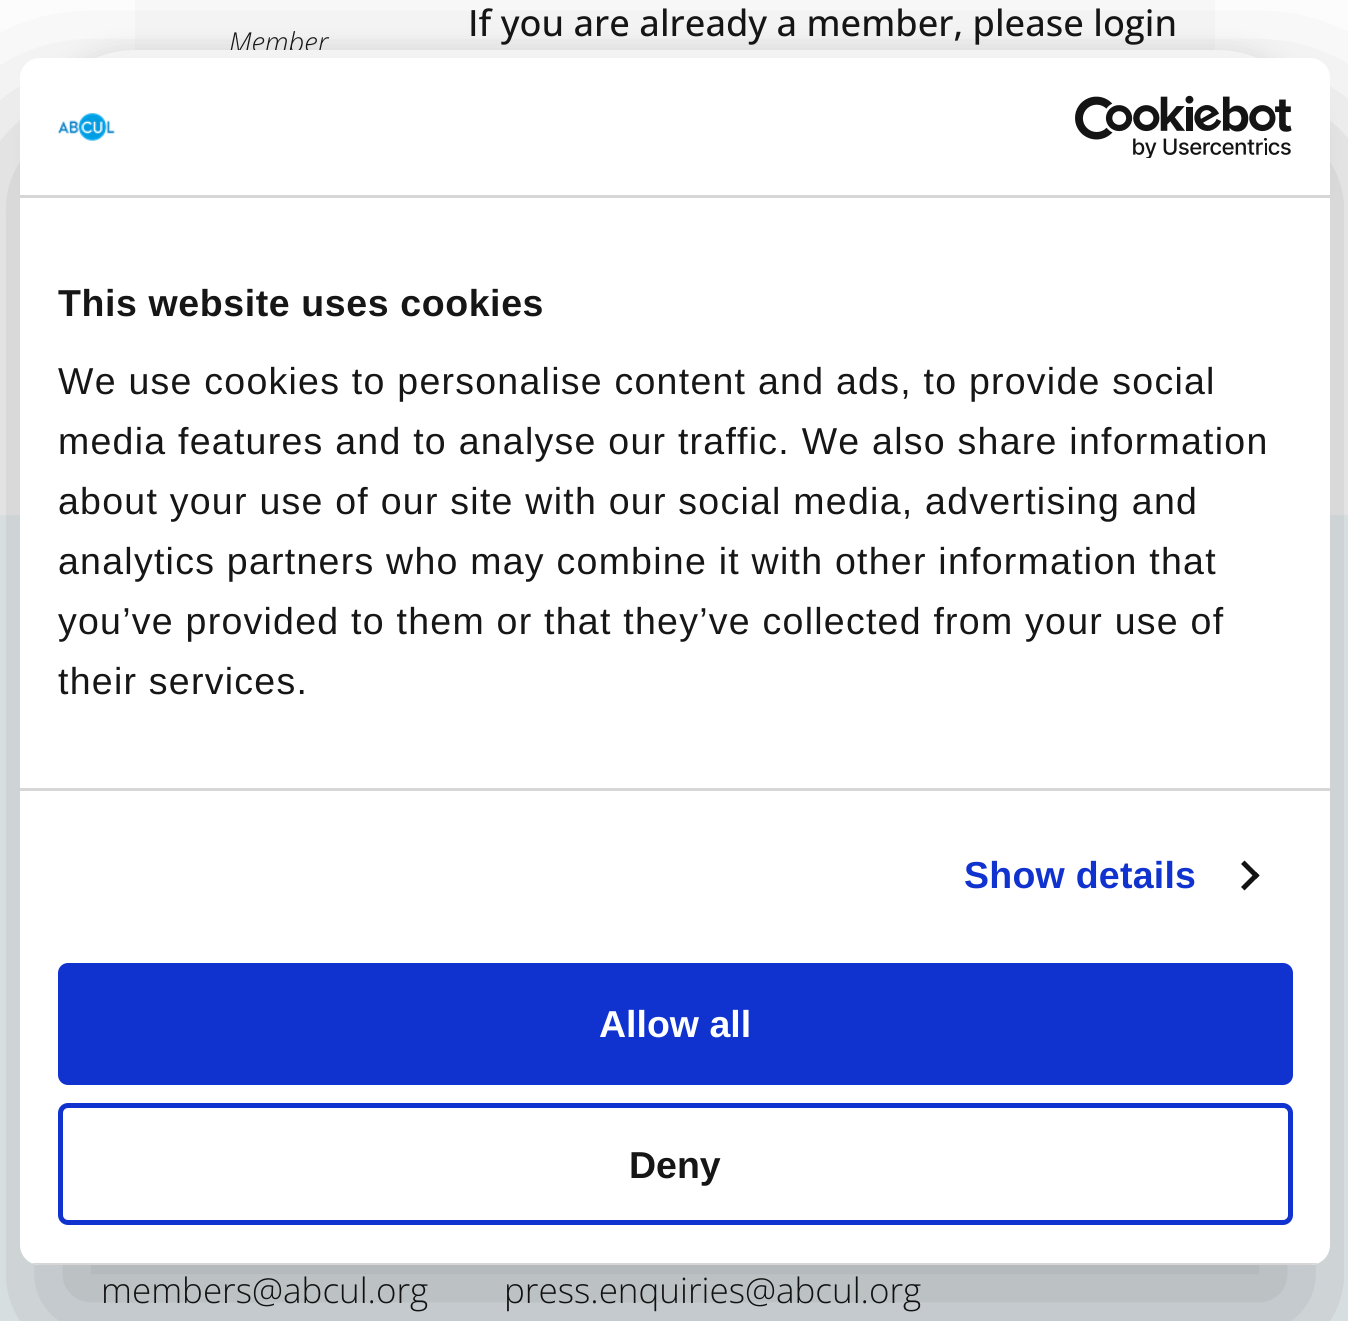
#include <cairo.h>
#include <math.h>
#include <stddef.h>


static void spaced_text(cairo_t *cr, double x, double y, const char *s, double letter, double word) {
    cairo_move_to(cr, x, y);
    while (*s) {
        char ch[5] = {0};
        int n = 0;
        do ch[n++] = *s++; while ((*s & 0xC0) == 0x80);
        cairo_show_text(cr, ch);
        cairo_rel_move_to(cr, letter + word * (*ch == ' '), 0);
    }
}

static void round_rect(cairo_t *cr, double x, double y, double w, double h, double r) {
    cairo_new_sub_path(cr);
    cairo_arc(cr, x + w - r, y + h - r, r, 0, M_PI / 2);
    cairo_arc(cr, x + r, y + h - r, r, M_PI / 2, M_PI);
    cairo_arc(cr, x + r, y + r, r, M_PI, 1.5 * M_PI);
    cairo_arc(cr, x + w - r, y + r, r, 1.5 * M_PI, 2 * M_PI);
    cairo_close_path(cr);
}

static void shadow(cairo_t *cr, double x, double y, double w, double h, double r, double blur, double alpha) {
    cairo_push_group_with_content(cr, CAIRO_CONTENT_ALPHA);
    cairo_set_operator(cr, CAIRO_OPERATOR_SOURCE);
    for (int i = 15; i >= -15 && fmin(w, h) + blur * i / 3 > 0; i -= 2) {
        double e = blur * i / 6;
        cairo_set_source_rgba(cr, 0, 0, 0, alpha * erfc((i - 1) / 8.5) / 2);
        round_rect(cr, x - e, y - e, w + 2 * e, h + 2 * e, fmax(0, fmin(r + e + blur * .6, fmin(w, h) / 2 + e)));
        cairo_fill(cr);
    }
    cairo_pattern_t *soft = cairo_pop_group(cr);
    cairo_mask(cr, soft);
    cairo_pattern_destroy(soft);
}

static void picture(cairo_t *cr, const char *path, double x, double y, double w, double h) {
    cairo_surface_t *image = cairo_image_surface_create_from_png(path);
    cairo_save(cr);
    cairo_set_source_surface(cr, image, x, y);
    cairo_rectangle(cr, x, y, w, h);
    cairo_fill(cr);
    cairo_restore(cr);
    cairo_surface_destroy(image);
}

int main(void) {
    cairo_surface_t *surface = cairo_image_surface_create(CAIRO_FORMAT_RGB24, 1348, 1321);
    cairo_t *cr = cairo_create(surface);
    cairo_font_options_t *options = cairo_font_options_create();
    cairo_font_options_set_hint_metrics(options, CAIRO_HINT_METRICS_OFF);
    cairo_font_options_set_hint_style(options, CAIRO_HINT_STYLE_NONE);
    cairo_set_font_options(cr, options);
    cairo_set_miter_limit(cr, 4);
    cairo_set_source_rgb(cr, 1, 1, 1);
    cairo_paint(cr);
    cairo_set_source_rgb(cr, 0.98, 0.98, 0.98);
    cairo_rectangle(cr, 135, 0, 1080, 50);
    cairo_fill(cr);
    cairo_select_font_face(cr, "Open Sans Light", CAIRO_FONT_SLANT_ITALIC, CAIRO_FONT_WEIGHT_NORMAL);
    cairo_set_font_size(cr, 27.5);
    cairo_set_source_rgb(cr, 0.086, 0.086, 0.086);
    cairo_move_to(cr, 229, 52);
    cairo_show_text(cr, "Member");
    cairo_select_font_face(cr, "Open Sans Medium", CAIRO_FONT_SLANT_NORMAL, CAIRO_FONT_WEIGHT_NORMAL);
    cairo_set_font_size(cr, 36.25);
    cairo_move_to(cr, 468, 36);
    cairo_show_text(cr, "If you are already a member, please login");
    cairo_set_source_rgb(cr, 0, 0, 0);
    shadow(cr, 35, 50, 1283, 200, 100, 12.5, 0.1);
    cairo_set_source_rgb(cr, 1, 1, 1);
    round_rect(cr, 35, 50, 1283, 200, 100);
    cairo_fill(cr);
    cairo_set_source_rgb(cr, 0.949, 0.973, 0.988);
    cairo_rectangle(cr, 0, 515, 1348, 806);
    cairo_fill(cr);
    cairo_select_font_face(cr, "Open Sans Light", CAIRO_FONT_SLANT_NORMAL, CAIRO_FONT_WEIGHT_NORMAL);
    cairo_set_font_size(cr, 35);
    cairo_set_source_rgb(cr, 0.086, 0.086, 0.086);
    cairo_move_to(cr, 101, 1303);
    cairo_show_text(cr, "members@abcul.org");
    cairo_move_to(cr, 504, 1303);
    cairo_show_text(cr, "press.enquiries@abcul.org");
    cairo_set_source_rgb(cr, 0, 0, 0);
    shadow(cr, 20, 138, 1310, 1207, 20, 85, 0.3);
    cairo_set_source_rgb(cr, 1, 1, 1);
    round_rect(cr, 20, 58, 1310, 1207, 20);
    cairo_fill(cr);
    cairo_set_source_rgb(cr, 0.839, 0.839, 0.839);
    cairo_rectangle(cr, 20, 195, 1310, 3);
    cairo_fill(cr);
    picture(cr, "img1.png", 57, 113, 58, 28);
    picture(cr, "img2.png", 1075, 95, 217, 63);
    cairo_rectangle(cr, 20, 788, 1310, 3);
    cairo_fill(cr);
    cairo_select_font_face(cr, "Liberation Sans", CAIRO_FONT_SLANT_NORMAL, CAIRO_FONT_WEIGHT_BOLD);
    cairo_set_font_size(cr, 37.5);
    cairo_set_source_rgb(cr, 0.086, 0.086, 0.086);
    spaced_text(cr, 58, 316, "This website uses cookies", 0.6, 0);
    cairo_select_font_face(cr, "Liberation Sans", CAIRO_FONT_SLANT_NORMAL, CAIRO_FONT_WEIGHT_NORMAL);
    spaced_text(cr, 58, 394, "We use cookies to personalise content and ads, to provide social", 1.25, 0);
    spaced_text(cr, 58, 454, "media features and to analyse our traffic. We also share information", 1.25, 0);
    spaced_text(cr, 58, 514, "about your use of our site with our social media, advertising and", 1.25, 0);
    spaced_text(cr, 58, 574, "analytics partners who may combine it with other information that", 1.25, 0);
    spaced_text(cr, 58, 634, "you’ve provided to them or that they’ve collected from your use of", 1.25, 0);
    spaced_text(cr, 58, 694, "their services.", 1.25, 0);
    cairo_select_font_face(cr, "Liberation Sans", CAIRO_FONT_SLANT_NORMAL, CAIRO_FONT_WEIGHT_BOLD);
    cairo_set_source_rgb(cr, 0.063, 0.196, 0.812);
    spaced_text(cr, 964, 888, "Show details", 0.25, 0);
    cairo_set_source_rgb(cr, 0.078, 0.078, 0.078);
    cairo_new_path(cr);
    cairo_move_to(cr, 1244.5, 860.5);
    cairo_line_to(cr, 1259.5, 875.5);
    cairo_line_to(cr, 1256, 879);
    cairo_line_to(cr, 1241, 864);
    cairo_close_path(cr);
    cairo_fill(cr);
    cairo_new_path(cr);
    cairo_move_to(cr, 1256, 872);
    cairo_line_to(cr, 1259.5, 875.5);
    cairo_line_to(cr, 1244.5, 890.5);
    cairo_line_to(cr, 1241, 887);
    cairo_close_path(cr);
    cairo_fill(cr);
    cairo_save(cr);
    round_rect(cr, 20, 58, 1310, 1207, 20);
    cairo_clip(cr);
    cairo_set_source_rgb(cr, 0.839, 0.839, 0.839);
    cairo_rectangle(cr, 31, 1263, 1288, 2);
    cairo_fill(cr);
    cairo_restore(cr);
    cairo_set_source_rgb(cr, 0.063, 0.196, 0.812);
    round_rect(cr, 60.5, 965.5, 1230, 117, 7.5);
    cairo_fill_preserve(cr);
    cairo_set_line_width(cr, 5);
    cairo_stroke(cr);
    cairo_set_source_rgb(cr, 1, 1, 1);
    cairo_move_to(cr, 599, 1037);
    cairo_show_text(cr, "Allow all");
    round_rect(cr, 60.5, 1105.5, 1230, 117, 7.5);
    cairo_set_source_rgb(cr, 0.063, 0.196, 0.812);
    cairo_stroke(cr);
    cairo_set_source_rgb(cr, 0.086, 0.086, 0.086);
    cairo_move_to(cr, 629, 1178);
    cairo_show_text(cr, "Deny");
    cairo_surface_write_to_png(surface, "page.png");
    cairo_font_options_destroy(options);
    cairo_destroy(cr);
    cairo_surface_destroy(surface);
    return 0;
}
